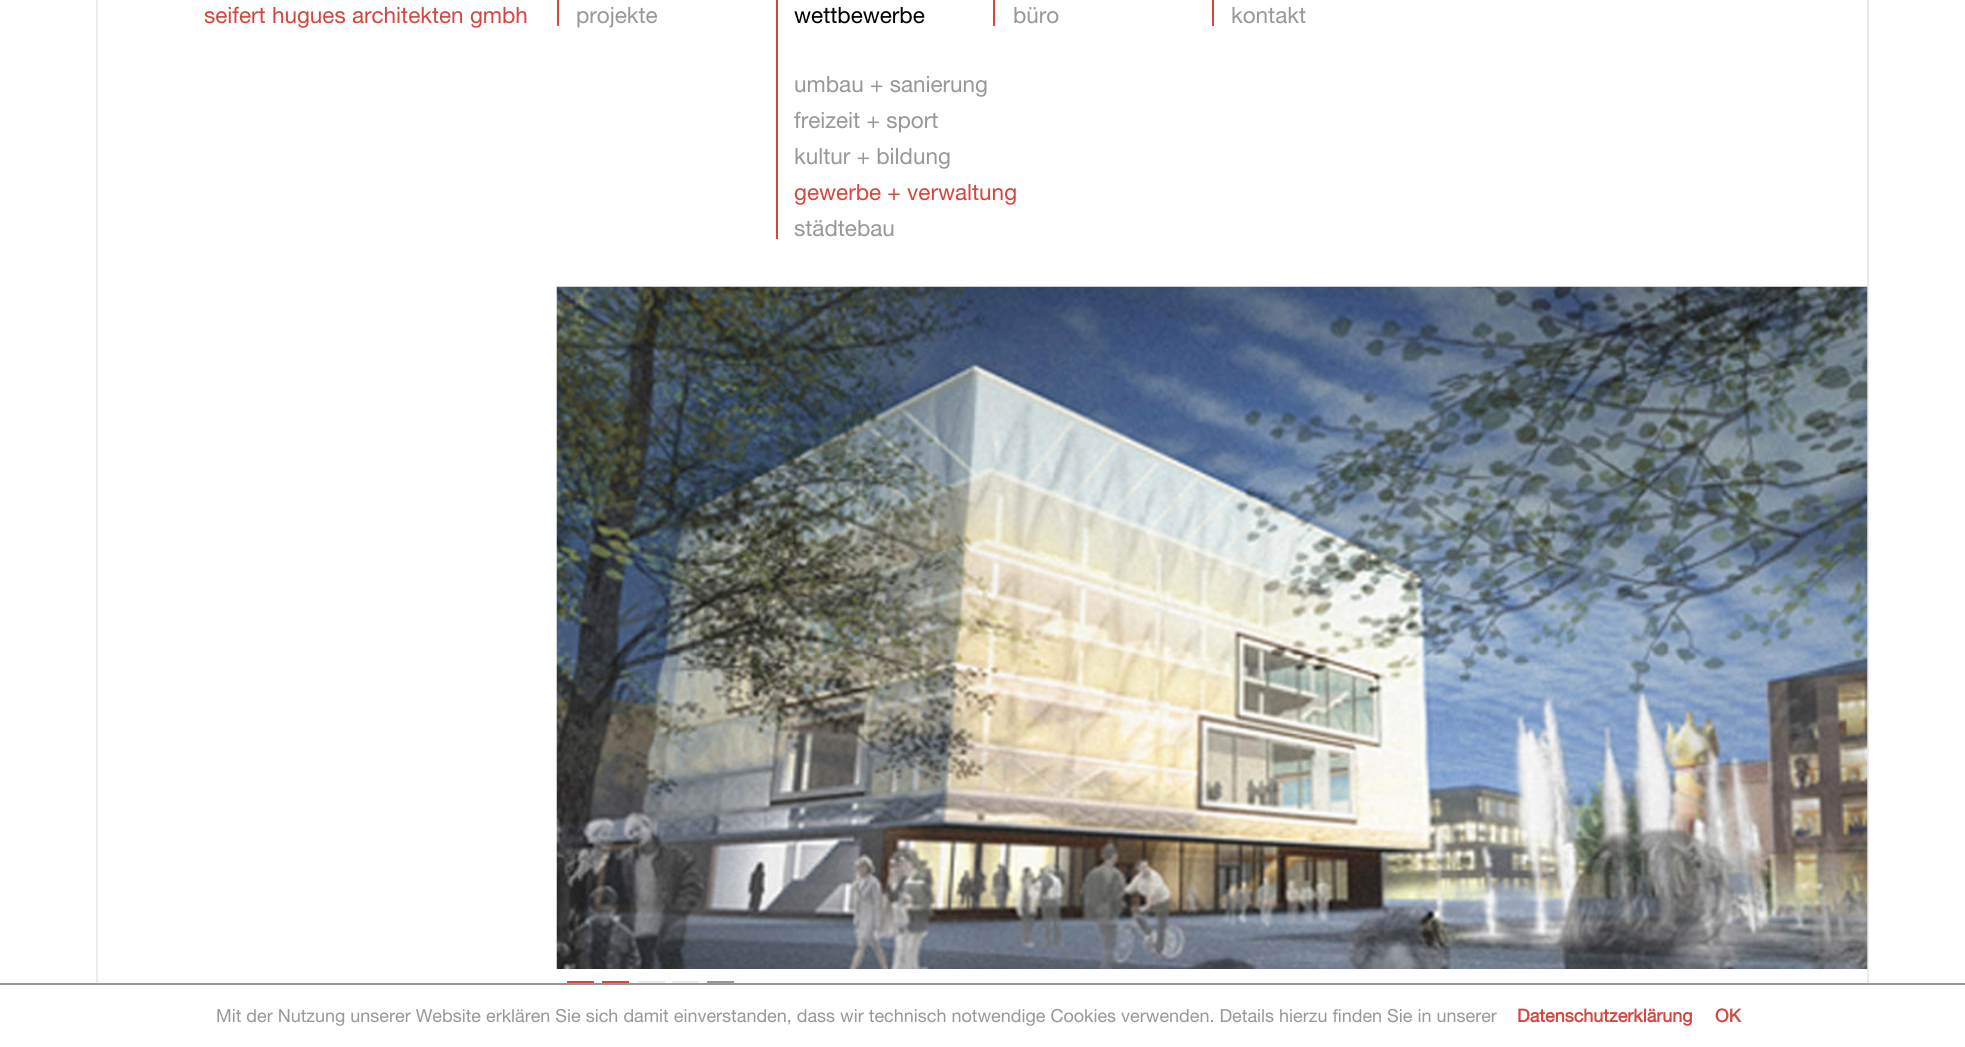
#include <cairo.h>
#include <math.h>
#include <stddef.h>


static void picture(cairo_t *cr, const char *path, double x, double y, double w, double h) {
    cairo_surface_t *image = cairo_image_surface_create_from_png(path);
    cairo_save(cr);
    cairo_set_source_surface(cr, image, x, y);
    cairo_rectangle(cr, x, y, w, h);
    cairo_fill(cr);
    cairo_restore(cr);
    cairo_surface_destroy(image);
}

int main(void) {
    cairo_surface_t *surface = cairo_image_surface_create(CAIRO_FORMAT_RGB24, 1965, 1047);
    cairo_t *cr = cairo_create(surface);
    cairo_font_options_t *options = cairo_font_options_create();
    cairo_font_options_set_hint_metrics(options, CAIRO_HINT_METRICS_OFF);
    cairo_font_options_set_hint_style(options, CAIRO_HINT_STYLE_NONE);
    cairo_set_font_options(cr, options);
    cairo_set_miter_limit(cr, 4);
    cairo_set_source_rgb(cr, 1, 1, 1);
    cairo_paint(cr);
    cairo_rectangle(cr, 97, -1, 1771, 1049);
    cairo_set_source_rgb(cr, 0.918, 0.918, 0.918);
    cairo_stroke(cr);
    cairo_select_font_face(cr, "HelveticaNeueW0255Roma", CAIRO_FONT_SLANT_NORMAL, CAIRO_FONT_WEIGHT_NORMAL);
    cairo_set_font_size(cr, 22.5);
    cairo_set_source_rgb(cr, 0.827, 0.278, 0.247);
    cairo_move_to(cr, 204, 23);
    cairo_show_text(cr, "seifert hugues architekten gmbh");
    cairo_rectangle(cr, 557, 0, 2, 26);
    cairo_fill(cr);
    cairo_set_source_rgb(cr, 0.592, 0.596, 0.604);
    cairo_move_to(cr, 576, 23);
    cairo_show_text(cr, "projekte");
    cairo_set_source_rgb(cr, 0.827, 0.278, 0.247);
    cairo_rectangle(cr, 776, 0, 2, 239);
    cairo_fill(cr);
    cairo_set_source_rgb(cr, 0, 0, 0);
    cairo_move_to(cr, 794, 23);
    cairo_show_text(cr, "wettbewerbe");
    cairo_set_source_rgb(cr, 0.592, 0.596, 0.604);
    cairo_move_to(cr, 794, 92);
    cairo_show_text(cr, "umbau + sanierung");
    cairo_move_to(cr, 794, 128);
    cairo_show_text(cr, "freizeit + sport");
    cairo_move_to(cr, 794, 164);
    cairo_show_text(cr, "kultur + bildung");
    cairo_set_source_rgb(cr, 0.827, 0.278, 0.247);
    cairo_move_to(cr, 794, 200);
    cairo_show_text(cr, "gewerbe + verwaltung");
    cairo_set_source_rgb(cr, 0.592, 0.596, 0.604);
    cairo_move_to(cr, 794, 236);
    cairo_show_text(cr, "städtebau");
    cairo_set_source_rgb(cr, 0.827, 0.278, 0.247);
    cairo_rectangle(cr, 993, 0, 2, 26);
    cairo_fill(cr);
    cairo_set_source_rgb(cr, 0.592, 0.596, 0.604);
    cairo_move_to(cr, 1013, 23);
    cairo_show_text(cr, "büro");
    cairo_set_source_rgb(cr, 0.827, 0.278, 0.247);
    cairo_rectangle(cr, 1212, 0, 2, 26);
    cairo_fill(cr);
    cairo_set_source_rgb(cr, 0.592, 0.596, 0.604);
    cairo_move_to(cr, 1231, 23);
    cairo_show_text(cr, "kontakt");
    picture(cr, "img1.png", 556, 286, 1312, 683);
    cairo_set_source_rgb(cr, 0.827, 0.278, 0.247);
    cairo_rectangle(cr, 567, 981, 27, 2);
    cairo_fill(cr);
    cairo_rectangle(cr, 603, 982, 25, 25);
    cairo_stroke(cr);
    cairo_rectangle(cr, 639, 982, 25, 25);
    cairo_set_source_rgb(cr, 0.918, 0.918, 0.918);
    cairo_stroke(cr);
    cairo_rectangle(cr, 673, 982, 25, 25);
    cairo_stroke(cr);
    cairo_rectangle(cr, 708, 982, 25, 25);
    cairo_set_source_rgb(cr, 0.592, 0.596, 0.604);
    cairo_stroke(cr);
    cairo_set_source_rgb(cr, 1, 1, 1);
    cairo_rectangle(cr, 96, 985, 1773, 62);
    cairo_fill(cr);
    cairo_set_source_rgb(cr, 0.592, 0.596, 0.604);
    cairo_rectangle(cr, 0, 983, 1965, 2);
    cairo_fill(cr);
    cairo_set_font_size(cr, 18);
    cairo_move_to(cr, 216, 1022);
    cairo_show_text(cr, "Mit der Nutzung unserer Website erklären Sie sich damit einverstanden, dass wir technisch notwendige Cookies verwenden. Details hierzu finden Sie in unserer");
    cairo_select_font_face(cr, "HelveticaNeueW0255Roma", CAIRO_FONT_SLANT_NORMAL, CAIRO_FONT_WEIGHT_BOLD);
    cairo_set_source_rgb(cr, 0.827, 0.278, 0.247);
    cairo_move_to(cr, 1517, 1022);
    cairo_show_text(cr, "Datenschutzerklärung");
    cairo_move_to(cr, 1715, 1022);
    cairo_show_text(cr, "OK");
    cairo_surface_write_to_png(surface, "page.png");
    cairo_font_options_destroy(options);
    cairo_destroy(cr);
    cairo_surface_destroy(surface);
    return 0;
}
